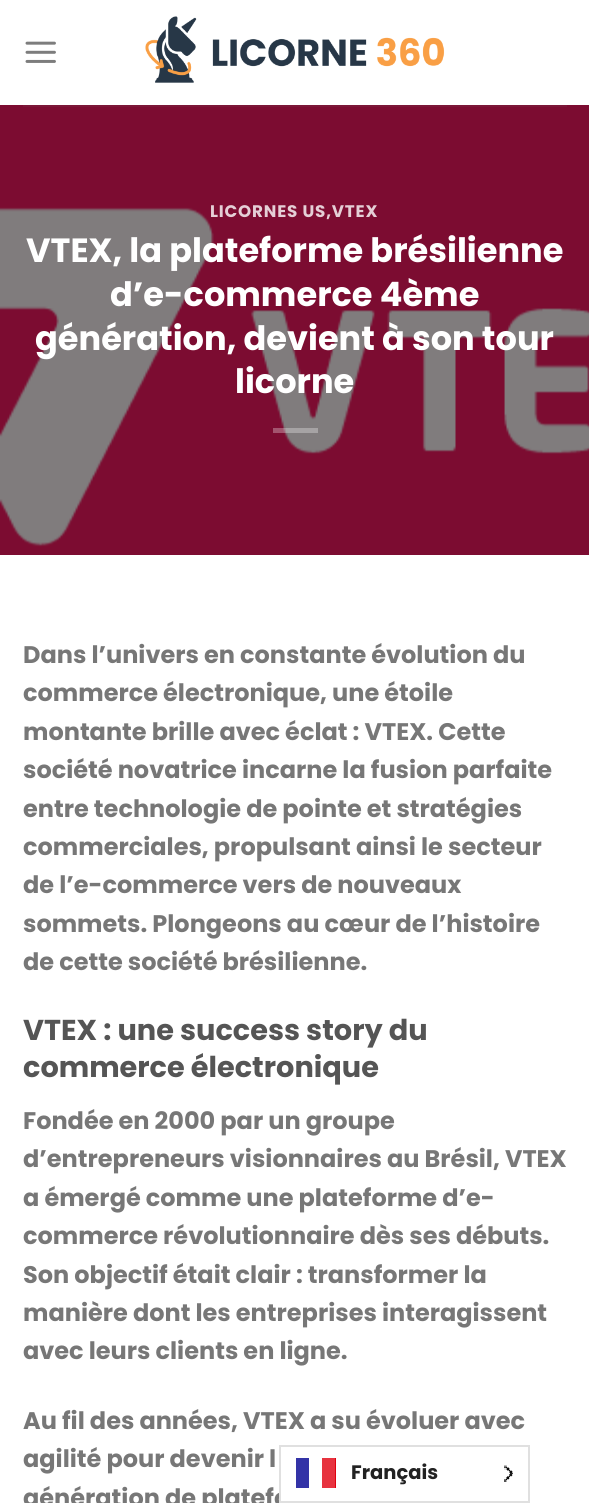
#include <cairo.h>
#include <math.h>
#include <stddef.h>


static void spaced_text(cairo_t *cr, double x, double y, const char *s, double letter, double word) {
    cairo_move_to(cr, x, y);
    while (*s) {
        char ch[5] = {0};
        int n = 0;
        do ch[n++] = *s++; while ((*s & 0xC0) == 0x80);
        cairo_show_text(cr, ch);
        cairo_rel_move_to(cr, letter + word * (*ch == ' '), 0);
    }
}

static void picture(cairo_t *cr, const char *path, double x, double y, double w, double h) {
    cairo_surface_t *image = cairo_image_surface_create_from_png(path);
    cairo_save(cr);
    cairo_set_source_surface(cr, image, x, y);
    cairo_rectangle(cr, x, y, w, h);
    cairo_fill(cr);
    cairo_restore(cr);
    cairo_surface_destroy(image);
}

int main(void) {
    cairo_surface_t *surface = cairo_image_surface_create(CAIRO_FORMAT_RGB24, 589, 1503);
    cairo_t *cr = cairo_create(surface);
    cairo_font_options_t *options = cairo_font_options_create();
    cairo_font_options_set_hint_metrics(options, CAIRO_HINT_METRICS_OFF);
    cairo_font_options_set_hint_style(options, CAIRO_HINT_STYLE_NONE);
    cairo_set_font_options(cr, options);
    cairo_set_miter_limit(cr, 4);
    cairo_set_source_rgb(cr, 1, 1, 1);
    cairo_paint(cr);
    picture(cr, "img1.png", 25, 41, 31, 22);
    picture(cr, "img2.png", 145, 16, 300, 67);
    picture(cr, "img3.png", 0, 105, 589, 450);
    cairo_set_source_rgb(cr, 0.482, 0.09, 0.22);
    cairo_rectangle(cr, 23, 105, 544, 2);
    cairo_fill(cr);
    cairo_select_font_face(cr, "Poppins", CAIRO_FONT_SLANT_NORMAL, CAIRO_FONT_WEIGHT_BOLD);
    cairo_set_font_size(cr, 16.75);
    cairo_set_source_rgb(cr, 0.898, 0.812, 0.839);
    spaced_text(cr, 210, 217, "LICORNES US,VTEX", 0.8, 0);
    cairo_set_font_size(cr, 33.6);
    cairo_set_source_rgb(cr, 1, 1, 1);
    cairo_move_to(cr, 26, 262);
    cairo_show_text(cr, "VTEX, la plateforme brésilienne");
    cairo_move_to(cr, 110, 306);
    cairo_show_text(cr, "d’e-commerce 4ème");
    cairo_move_to(cr, 35, 350);
    cairo_show_text(cr, "génération, devient à son tour");
    cairo_move_to(cr, 235, 393);
    cairo_show_text(cr, "licorne");
    cairo_set_source_rgba(cr, 1, 1, 1, 0.3);
    cairo_rectangle(cr, 273, 428, 45, 5);
    cairo_fill(cr);
    cairo_set_font_size(cr, 24);
    cairo_set_source_rgb(cr, 0.467, 0.467, 0.467);
    cairo_move_to(cr, 23, 663);
    cairo_show_text(cr, "Dans l’univers en constante évolution du");
    cairo_move_to(cr, 23, 701);
    cairo_show_text(cr, "commerce électronique, une étoile");
    cairo_move_to(cr, 23, 740);
    cairo_show_text(cr, "montante brille avec éclat : VTEX. Cette");
    cairo_move_to(cr, 23, 778);
    cairo_show_text(cr, "société novatrice incarne la fusion parfaite");
    cairo_move_to(cr, 23, 817);
    cairo_show_text(cr, "entre technologie de pointe et stratégies");
    cairo_move_to(cr, 23, 855);
    cairo_show_text(cr, "commerciales, propulsant ainsi le secteur");
    cairo_move_to(cr, 23, 893);
    cairo_show_text(cr, "de l’e-commerce vers de nouveaux");
    cairo_move_to(cr, 23, 932);
    cairo_show_text(cr, "sommets. Plongeons au cœur de l’histoire");
    cairo_move_to(cr, 23, 970);
    cairo_show_text(cr, "de cette société brésilienne.");
    cairo_set_font_size(cr, 28.75);
    cairo_set_source_rgb(cr, 0.333, 0.333, 0.333);
    cairo_move_to(cr, 23, 1040);
    cairo_show_text(cr, "VTEX : une success story du");
    cairo_move_to(cr, 23, 1077);
    cairo_show_text(cr, "commerce électronique");
    cairo_set_font_size(cr, 24);
    cairo_set_source_rgb(cr, 0.467, 0.467, 0.467);
    cairo_move_to(cr, 23, 1129);
    cairo_show_text(cr, "Fondée en 2000 par un groupe");
    cairo_move_to(cr, 23, 1167);
    cairo_show_text(cr, "d’entrepreneurs visionnaires au Brésil, VTEX");
    cairo_move_to(cr, 23, 1206);
    cairo_show_text(cr, "a émergé comme une plateforme d’e-");
    cairo_move_to(cr, 23, 1244);
    cairo_show_text(cr, "commerce révolutionnaire dès ses débuts.");
    cairo_move_to(cr, 23, 1283);
    cairo_show_text(cr, "Son objectif était clair : transformer la");
    cairo_move_to(cr, 23, 1321);
    cairo_show_text(cr, "manière dont les entreprises interagissent");
    cairo_move_to(cr, 23, 1359);
    cairo_show_text(cr, "avec leurs clients en ligne.");
    cairo_move_to(cr, 23, 1429);
    cairo_show_text(cr, "Au fil des années, VTEX a su évoluer avec");
    cairo_move_to(cr, 23, 1467);
    cairo_show_text(cr, "agilité pour devenir l");
    cairo_move_to(cr, 23, 1506);
    cairo_show_text(cr, "génération de platefo");
    cairo_set_source_rgb(cr, 1, 1, 1);
    cairo_rectangle(cr, 281, 1492, 8, 9);
    cairo_fill(cr);
    cairo_rectangle(cr, 280, 1446, 249, 56);
    cairo_set_source_rgb(cr, 0.878, 0.878, 0.878);
    cairo_stroke(cr);
    cairo_set_source_rgb(cr, 0, 0, 0.569);
    cairo_rectangle(cr, 296, 1458, 13, 30);
    cairo_fill(cr);
    cairo_set_source_rgb(cr, 0.882, 0, 0.059);
    cairo_rectangle(cr, 322, 1458, 14, 30);
    cairo_fill(cr);
    cairo_set_source_rgba(cr, 1, 1, 1, 0.2);
    cairo_rectangle(cr, 296, 1458, 39, 30);
    cairo_fill(cr);
    cairo_set_font_size(cr, 19.5);
    cairo_set_source_rgb(cr, 0.133, 0.133, 0.133);
    cairo_move_to(cr, 351, 1479);
    cairo_show_text(cr, "Français");
    picture(cr, "img4.png", 504, 1465, 9, 17);
    cairo_surface_write_to_png(surface, "page.png");
    cairo_font_options_destroy(options);
    cairo_destroy(cr);
    cairo_surface_destroy(surface);
    return 0;
}
